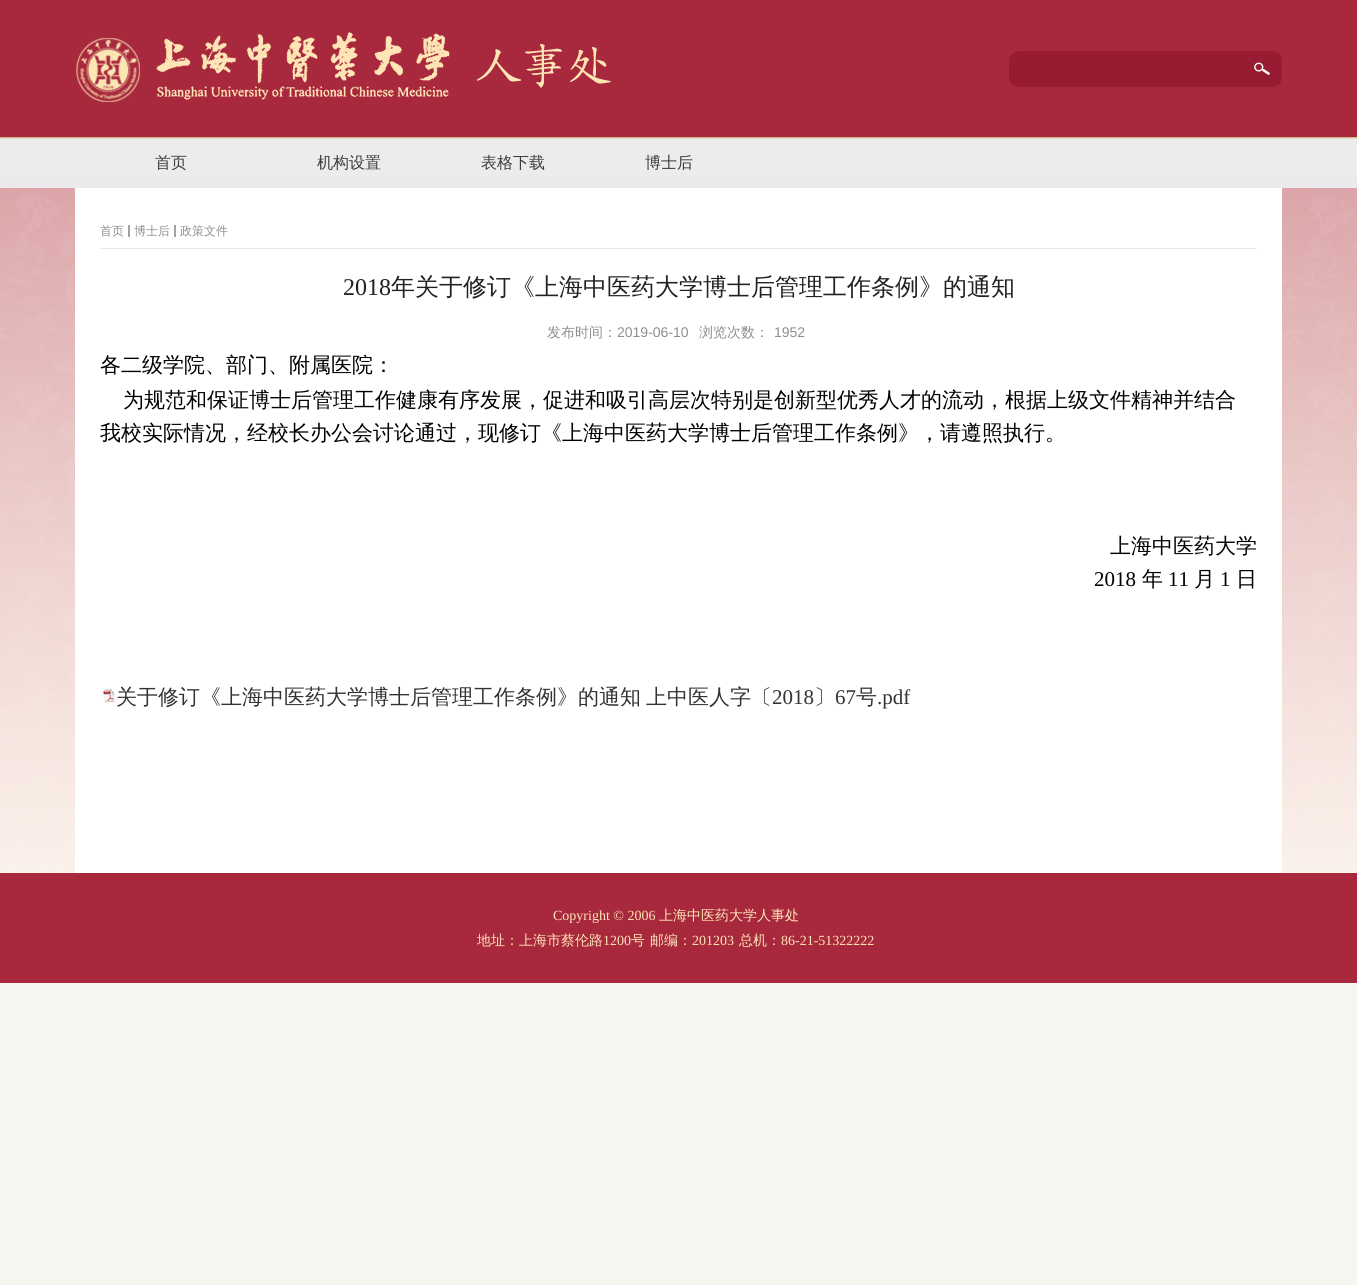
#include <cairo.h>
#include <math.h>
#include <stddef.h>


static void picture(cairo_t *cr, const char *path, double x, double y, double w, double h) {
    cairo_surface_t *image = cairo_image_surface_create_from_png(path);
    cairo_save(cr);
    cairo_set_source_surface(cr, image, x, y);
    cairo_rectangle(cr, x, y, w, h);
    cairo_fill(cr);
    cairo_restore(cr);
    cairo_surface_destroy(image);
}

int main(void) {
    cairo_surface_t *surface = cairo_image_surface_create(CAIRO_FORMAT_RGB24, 1357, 1285);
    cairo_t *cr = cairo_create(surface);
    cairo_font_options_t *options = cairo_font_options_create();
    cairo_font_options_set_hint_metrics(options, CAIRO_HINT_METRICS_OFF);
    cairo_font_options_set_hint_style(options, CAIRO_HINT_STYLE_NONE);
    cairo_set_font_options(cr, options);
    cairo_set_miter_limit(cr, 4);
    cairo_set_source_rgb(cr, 0.961, 0.961, 0.945);
    cairo_paint(cr);
    cairo_set_source_rgb(cr, 0.659, 0.161, 0.243);
    cairo_rectangle(cr, 0, 0, 1357, 137);
    cairo_fill(cr);
    picture(cr, "img1.png", 76, 32, 535, 70);
    picture(cr, "img2.png", 1009, 51, 273, 36);
    picture(cr, "img3.png", 0, 137, 1357, 51);
    cairo_select_font_face(cr, "WenQuanYi Zen Hei Medium", CAIRO_FONT_SLANT_NORMAL, CAIRO_FONT_WEIGHT_NORMAL);
    cairo_set_font_size(cr, 16);
    cairo_set_source_rgb(cr, 0.239, 0.239, 0.239);
    cairo_move_to(cr, 155, 168);
    cairo_show_text(cr, "首页");
    cairo_move_to(cr, 317, 168);
    cairo_show_text(cr, "机构设置");
    cairo_move_to(cr, 481, 168);
    cairo_show_text(cr, "表格下载");
    cairo_move_to(cr, 645, 168);
    cairo_show_text(cr, "博士后");
    picture(cr, "img4.png", 0, 188, 1357, 685);
    cairo_set_source_rgb(cr, 1, 1, 1);
    cairo_rectangle(cr, 75, 188, 1207, 685);
    cairo_fill(cr);
    cairo_set_source_rgb(cr, 0.914, 0.914, 0.914);
    cairo_rectangle(cr, 100, 248, 1157, 1);
    cairo_fill(cr);
    cairo_set_font_size(cr, 12);
    cairo_set_source_rgb(cr, 0.557, 0.557, 0.557);
    cairo_move_to(cr, 100, 235);
    cairo_show_text(cr, "首页");
    cairo_set_source_rgb(cr, 0.635, 0.635, 0.635);
    cairo_rectangle(cr, 128, 225, 2, 12);
    cairo_fill(cr);
    cairo_set_source_rgb(cr, 0.557, 0.557, 0.557);
    cairo_move_to(cr, 134, 235);
    cairo_show_text(cr, "博士后");
    cairo_set_source_rgb(cr, 0.635, 0.635, 0.635);
    cairo_rectangle(cr, 174, 225, 2, 12);
    cairo_fill(cr);
    cairo_set_source_rgb(cr, 0.557, 0.557, 0.557);
    cairo_move_to(cr, 180, 235);
    cairo_show_text(cr, "政策文件");
    cairo_select_font_face(cr, "Liberation Serif", CAIRO_FONT_SLANT_NORMAL, CAIRO_FONT_WEIGHT_NORMAL);
    cairo_set_font_size(cr, 24);
    cairo_set_source_rgb(cr, 0.129, 0.129, 0.129);
    cairo_move_to(cr, 343, 295);
    cairo_show_text(cr, "2018");
    cairo_select_font_face(cr, "WenQuanYi Zen Hei Medium", CAIRO_FONT_SLANT_NORMAL, CAIRO_FONT_WEIGHT_NORMAL);
    cairo_move_to(cr, 391, 295);
    cairo_show_text(cr, "年关于修订《上海中医药大学博士后管理工作条例》的通知");
    cairo_set_font_size(cr, 14);
    cairo_set_source_rgb(cr, 0.557, 0.557, 0.557);
    cairo_move_to(cr, 547, 337);
    cairo_show_text(cr, "发布时间：");
    cairo_select_font_face(cr, "Liberation Sans", CAIRO_FONT_SLANT_NORMAL, CAIRO_FONT_WEIGHT_NORMAL);
    cairo_move_to(cr, 617, 337);
    cairo_show_text(cr, "2019-06-10");
    cairo_select_font_face(cr, "WenQuanYi Zen Hei Medium", CAIRO_FONT_SLANT_NORMAL, CAIRO_FONT_WEIGHT_NORMAL);
    cairo_move_to(cr, 699, 337);
    cairo_show_text(cr, "浏览次数：");
    cairo_select_font_face(cr, "Liberation Sans", CAIRO_FONT_SLANT_NORMAL, CAIRO_FONT_WEIGHT_NORMAL);
    cairo_move_to(cr, 774, 337);
    cairo_show_text(cr, "1952");
    cairo_select_font_face(cr, "WenQuanYi Zen Hei Medium", CAIRO_FONT_SLANT_NORMAL, CAIRO_FONT_WEIGHT_NORMAL);
    cairo_set_font_size(cr, 21);
    cairo_set_source_rgb(cr, 0, 0, 0);
    cairo_move_to(cr, 100, 372);
    cairo_show_text(cr, "各二级学院、部门、附属医院：");
    cairo_move_to(cr, 123, 407);
    cairo_show_text(cr, "为规范和保证博士后管理工作健康有序发展，促进和吸引高层次特别是创新型优秀人才的流动，根据上级文件精神并结合");
    cairo_move_to(cr, 100, 440);
    cairo_show_text(cr, "我校实际情况，经校长办公会讨论通过，现修订《上海中医药大学博士后管理工作条例》，请遵照执行。");
    cairo_move_to(cr, 1110, 553);
    cairo_show_text(cr, "上海中医药大学");
    cairo_select_font_face(cr, "Liberation Serif", CAIRO_FONT_SLANT_NORMAL, CAIRO_FONT_WEIGHT_NORMAL);
    cairo_move_to(cr, 1094, 586);
    cairo_show_text(cr, "2018");
    cairo_select_font_face(cr, "WenQuanYi Zen Hei Medium", CAIRO_FONT_SLANT_NORMAL, CAIRO_FONT_WEIGHT_NORMAL);
    cairo_move_to(cr, 1142, 586);
    cairo_show_text(cr, "年");
    cairo_select_font_face(cr, "Liberation Serif", CAIRO_FONT_SLANT_NORMAL, CAIRO_FONT_WEIGHT_NORMAL);
    cairo_move_to(cr, 1168, 586);
    cairo_show_text(cr, "11");
    cairo_select_font_face(cr, "WenQuanYi Zen Hei Medium", CAIRO_FONT_SLANT_NORMAL, CAIRO_FONT_WEIGHT_NORMAL);
    cairo_move_to(cr, 1194, 586);
    cairo_show_text(cr, "月");
    cairo_select_font_face(cr, "Liberation Serif", CAIRO_FONT_SLANT_NORMAL, CAIRO_FONT_WEIGHT_NORMAL);
    cairo_move_to(cr, 1220, 586);
    cairo_show_text(cr, "1");
    cairo_select_font_face(cr, "WenQuanYi Zen Hei Medium", CAIRO_FONT_SLANT_NORMAL, CAIRO_FONT_WEIGHT_NORMAL);
    cairo_move_to(cr, 1236, 586);
    cairo_show_text(cr, "日");
    picture(cr, "img5.png", 103, 688, 12, 15);
    cairo_set_source_rgb(cr, 0.2, 0.2, 0.2);
    cairo_move_to(cr, 116, 704);
    cairo_show_text(cr, "关于修订《上海中医药大学博士后管理工作条例》的通知");
    cairo_move_to(cr, 646, 704);
    cairo_show_text(cr, "上中医人字〔");
    cairo_select_font_face(cr, "Liberation Serif", CAIRO_FONT_SLANT_NORMAL, CAIRO_FONT_WEIGHT_NORMAL);
    cairo_move_to(cr, 772, 704);
    cairo_show_text(cr, "2018");
    cairo_select_font_face(cr, "WenQuanYi Zen Hei Medium", CAIRO_FONT_SLANT_NORMAL, CAIRO_FONT_WEIGHT_NORMAL);
    cairo_move_to(cr, 814, 704);
    cairo_show_text(cr, "〕");
    cairo_select_font_face(cr, "Liberation Serif", CAIRO_FONT_SLANT_NORMAL, CAIRO_FONT_WEIGHT_NORMAL);
    cairo_move_to(cr, 835, 704);
    cairo_show_text(cr, "67");
    cairo_select_font_face(cr, "WenQuanYi Zen Hei Medium", CAIRO_FONT_SLANT_NORMAL, CAIRO_FONT_WEIGHT_NORMAL);
    cairo_move_to(cr, 856, 704);
    cairo_show_text(cr, "号");
    cairo_select_font_face(cr, "Liberation Serif", CAIRO_FONT_SLANT_NORMAL, CAIRO_FONT_WEIGHT_NORMAL);
    cairo_move_to(cr, 877, 704);
    cairo_show_text(cr, ".pdf");
    cairo_set_source_rgb(cr, 0.659, 0.161, 0.243);
    cairo_rectangle(cr, 0, 873, 1357, 110);
    cairo_fill(cr);
    cairo_set_font_size(cr, 14);
    cairo_set_source_rgb(cr, 1, 0.894, 0.71);
    cairo_move_to(cr, 553, 920);
    cairo_show_text(cr, "Copyright © 2006");
    cairo_select_font_face(cr, "WenQuanYi Zen Hei Medium", CAIRO_FONT_SLANT_NORMAL, CAIRO_FONT_WEIGHT_NORMAL);
    cairo_move_to(cr, 659, 920);
    cairo_show_text(cr, "上海中医药大学人事处");
    cairo_move_to(cr, 477, 945);
    cairo_show_text(cr, "地址：上海市蔡伦路");
    cairo_select_font_face(cr, "Liberation Serif", CAIRO_FONT_SLANT_NORMAL, CAIRO_FONT_WEIGHT_NORMAL);
    cairo_move_to(cr, 603, 945);
    cairo_show_text(cr, "1200");
    cairo_select_font_face(cr, "WenQuanYi Zen Hei Medium", CAIRO_FONT_SLANT_NORMAL, CAIRO_FONT_WEIGHT_NORMAL);
    cairo_move_to(cr, 631, 945);
    cairo_show_text(cr, "号");
    cairo_move_to(cr, 650, 945);
    cairo_show_text(cr, "邮编：");
    cairo_select_font_face(cr, "Liberation Serif", CAIRO_FONT_SLANT_NORMAL, CAIRO_FONT_WEIGHT_NORMAL);
    cairo_move_to(cr, 692, 945);
    cairo_show_text(cr, "201203");
    cairo_select_font_face(cr, "WenQuanYi Zen Hei Medium", CAIRO_FONT_SLANT_NORMAL, CAIRO_FONT_WEIGHT_NORMAL);
    cairo_move_to(cr, 739, 945);
    cairo_show_text(cr, "总机：");
    cairo_select_font_face(cr, "Liberation Serif", CAIRO_FONT_SLANT_NORMAL, CAIRO_FONT_WEIGHT_NORMAL);
    cairo_move_to(cr, 781, 945);
    cairo_show_text(cr, "86-21-51322222");
    cairo_surface_write_to_png(surface, "page.png");
    cairo_font_options_destroy(options);
    cairo_destroy(cr);
    cairo_surface_destroy(surface);
    return 0;
}
